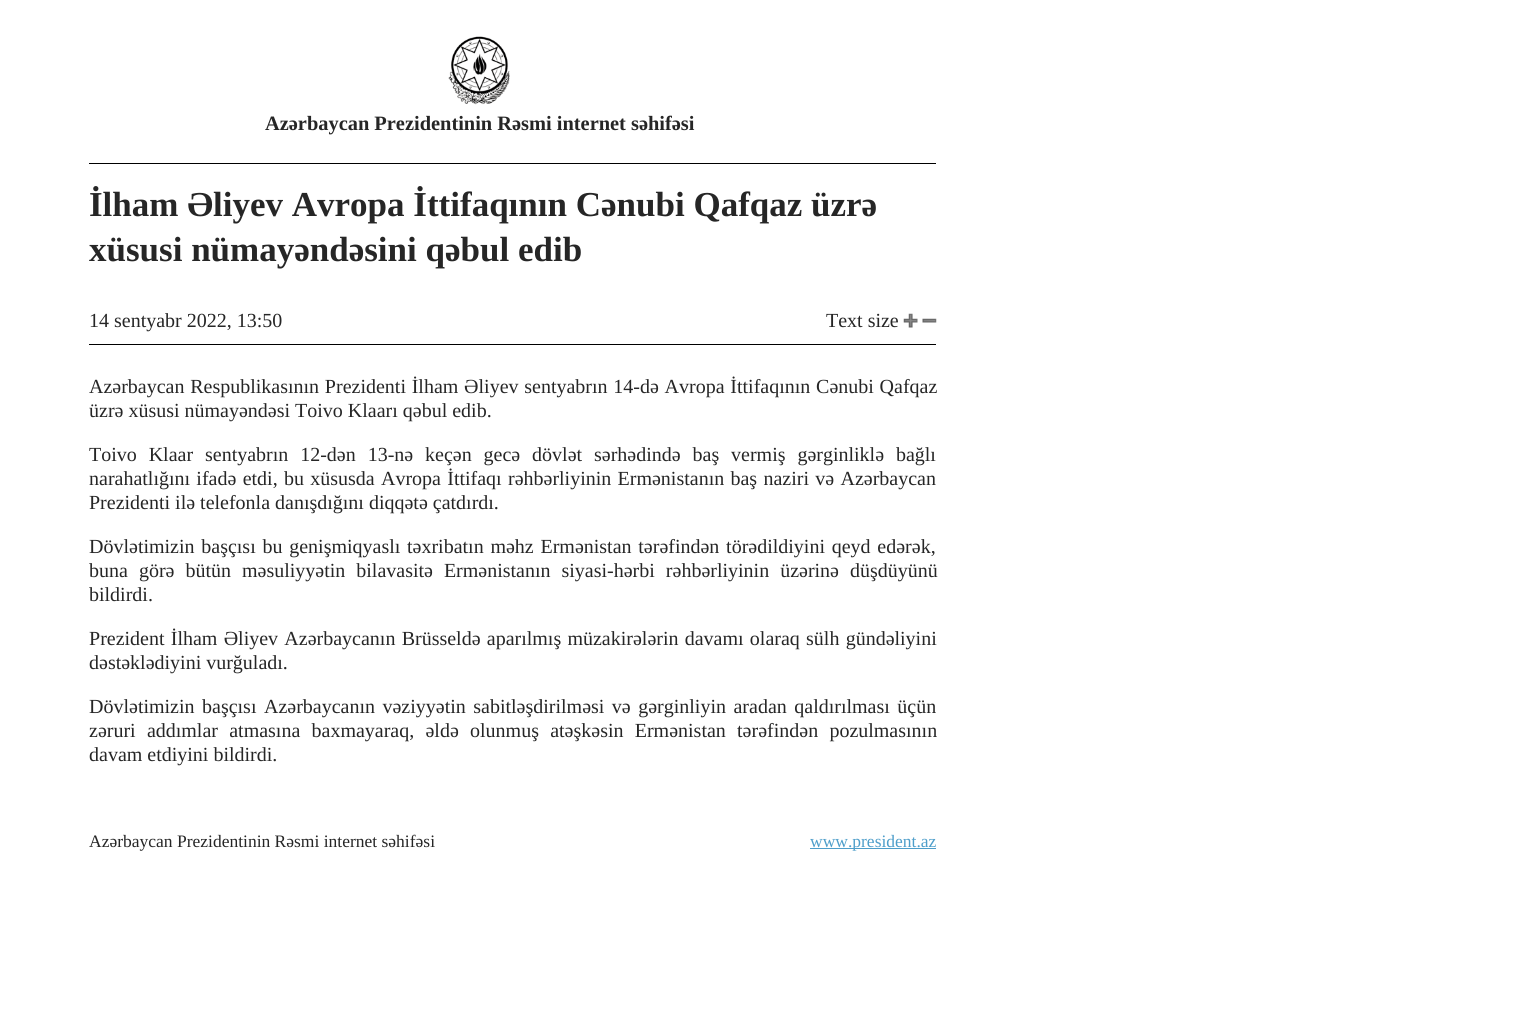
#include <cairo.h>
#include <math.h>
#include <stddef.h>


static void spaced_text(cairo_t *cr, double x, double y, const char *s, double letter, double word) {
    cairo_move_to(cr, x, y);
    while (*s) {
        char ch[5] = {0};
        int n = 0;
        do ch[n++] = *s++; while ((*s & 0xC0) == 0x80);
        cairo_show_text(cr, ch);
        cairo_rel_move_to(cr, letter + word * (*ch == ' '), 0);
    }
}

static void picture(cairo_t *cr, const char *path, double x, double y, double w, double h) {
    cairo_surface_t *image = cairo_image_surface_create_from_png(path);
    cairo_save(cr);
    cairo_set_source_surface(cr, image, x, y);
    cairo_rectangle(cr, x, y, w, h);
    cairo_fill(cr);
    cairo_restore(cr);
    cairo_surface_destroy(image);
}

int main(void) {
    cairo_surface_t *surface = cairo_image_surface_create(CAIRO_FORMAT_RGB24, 1538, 1022);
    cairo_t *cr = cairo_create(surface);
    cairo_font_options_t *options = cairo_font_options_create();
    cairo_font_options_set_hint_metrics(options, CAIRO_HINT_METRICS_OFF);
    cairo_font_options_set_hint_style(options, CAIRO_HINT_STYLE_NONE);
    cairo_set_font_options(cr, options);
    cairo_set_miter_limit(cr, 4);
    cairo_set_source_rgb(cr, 1, 1, 1);
    cairo_paint(cr);
    picture(cr, "img1.png", 448, 36, 62, 69);
    cairo_select_font_face(cr, "Liberation Serif", CAIRO_FONT_SLANT_NORMAL, CAIRO_FONT_WEIGHT_BOLD);
    cairo_set_font_size(cr, 20.4);
    cairo_set_source_rgb(cr, 0.149, 0.149, 0.149);
    cairo_move_to(cr, 265, 130);
    cairo_show_text(cr, "Azərbaycan Prezidentinin Rəsmi internet səhifəsi");
    cairo_set_source_rgb(cr, 0, 0, 0);
    cairo_rectangle(cr, 89, 163, 847, 1);
    cairo_fill(cr);
    cairo_set_font_size(cr, 35);
    cairo_set_source_rgb(cr, 0.149, 0.149, 0.149);
    cairo_move_to(cr, 89, 216);
    cairo_show_text(cr, "İlham Əliyev Avropa İttifaqının Cənubi Qafqaz üzrə");
    cairo_move_to(cr, 89, 261);
    cairo_show_text(cr, "xüsusi nümayəndəsini qəbul edib");
    cairo_set_source_rgb(cr, 0, 0, 0);
    cairo_rectangle(cr, 89, 344, 847, 1);
    cairo_fill(cr);
    cairo_select_font_face(cr, "Liberation Serif", CAIRO_FONT_SLANT_NORMAL, CAIRO_FONT_WEIGHT_NORMAL);
    cairo_set_font_size(cr, 20);
    cairo_set_source_rgb(cr, 0.149, 0.149, 0.149);
    cairo_move_to(cr, 89, 327);
    cairo_show_text(cr, "14 sentyabr 2022, 13:50");
    cairo_move_to(cr, 826, 327);
    cairo_show_text(cr, "Text size");
    picture(cr, "img2.png", 903, 313, 15, 15);
    picture(cr, "img3.png", 922, 318, 15, 5);
    spaced_text(cr, 89, 393, "Azərbaycan Respublikasının Prezidenti İlham Əliyev sentyabrın 14-də Avropa İttifaqının Cənubi Qafqaz", 0, 0.75);
    cairo_move_to(cr, 89, 417);
    cairo_show_text(cr, "üzrə xüsusi nümayəndəsi Toivo Klaarı qəbul edib.");
    spaced_text(cr, 89, 461, "Toivo Klaar sentyabrın 12-dən 13-nə keçən gecə dövlət sərhədində baş vermiş gərginliklə bağlı", 0, 6.9);
    spaced_text(cr, 89, 485, "narahatlığını ifadə etdi, bu xüsusda Avropa İttifaqı rəhbərliyinin Ermənistanın baş naziri və Azərbaycan", 0, 1.3);
    cairo_move_to(cr, 89, 509);
    cairo_show_text(cr, "Prezidenti ilə telefonla danışdığını diqqətə çatdırdı.");
    spaced_text(cr, 89, 553, "Dövlətimizin başçısı bu genişmiqyaslı təxribatın məhz Ermənistan tərəfindən törədildiyini qeyd edərək,", 0, 1.75);
    spaced_text(cr, 89, 577, "buna görə bütün məsuliyyətin bilavasitə Ermənistanın siyasi-hərbi rəhbərliyinin üzərinə düşdüyünü", 0, 6);
    cairo_move_to(cr, 89, 601);
    cairo_show_text(cr, "bildirdi.");
    spaced_text(cr, 89, 645, "Prezident İlham Əliyev Azərbaycanın Brüsseldə aparılmış müzakirələrin davamı olaraq sülh gündəliyini", 0, 1.25);
    cairo_move_to(cr, 89, 669);
    cairo_show_text(cr, "dəstəklədiyini vurğuladı.");
    spaced_text(cr, 89, 713, "Dövlətimizin başçısı Azərbaycanın vəziyyətin sabitləşdirilməsi və gərginliyin aradan qaldırılması üçün", 0, 2.5);
    spaced_text(cr, 89, 737, "zəruri addımlar atmasına baxmayaraq, əldə olunmuş atəşkəsin Ermənistan tərəfindən pozulmasının", 0, 6.25);
    cairo_move_to(cr, 89, 761);
    cairo_show_text(cr, "davam etdiyini bildirdi.");
    cairo_set_font_size(cr, 17.5);
    cairo_move_to(cr, 89, 847);
    cairo_show_text(cr, "Azərbaycan Prezidentinin Rəsmi internet səhifəsi");
    cairo_set_source_rgb(cr, 0.306, 0.62, 0.792);
    cairo_rectangle(cr, 810, 848, 126, 1);
    cairo_fill(cr);
    cairo_move_to(cr, 810, 847);
    cairo_show_text(cr, "www.president.az");
    cairo_surface_write_to_png(surface, "page.png");
    cairo_font_options_destroy(options);
    cairo_destroy(cr);
    cairo_surface_destroy(surface);
    return 0;
}
